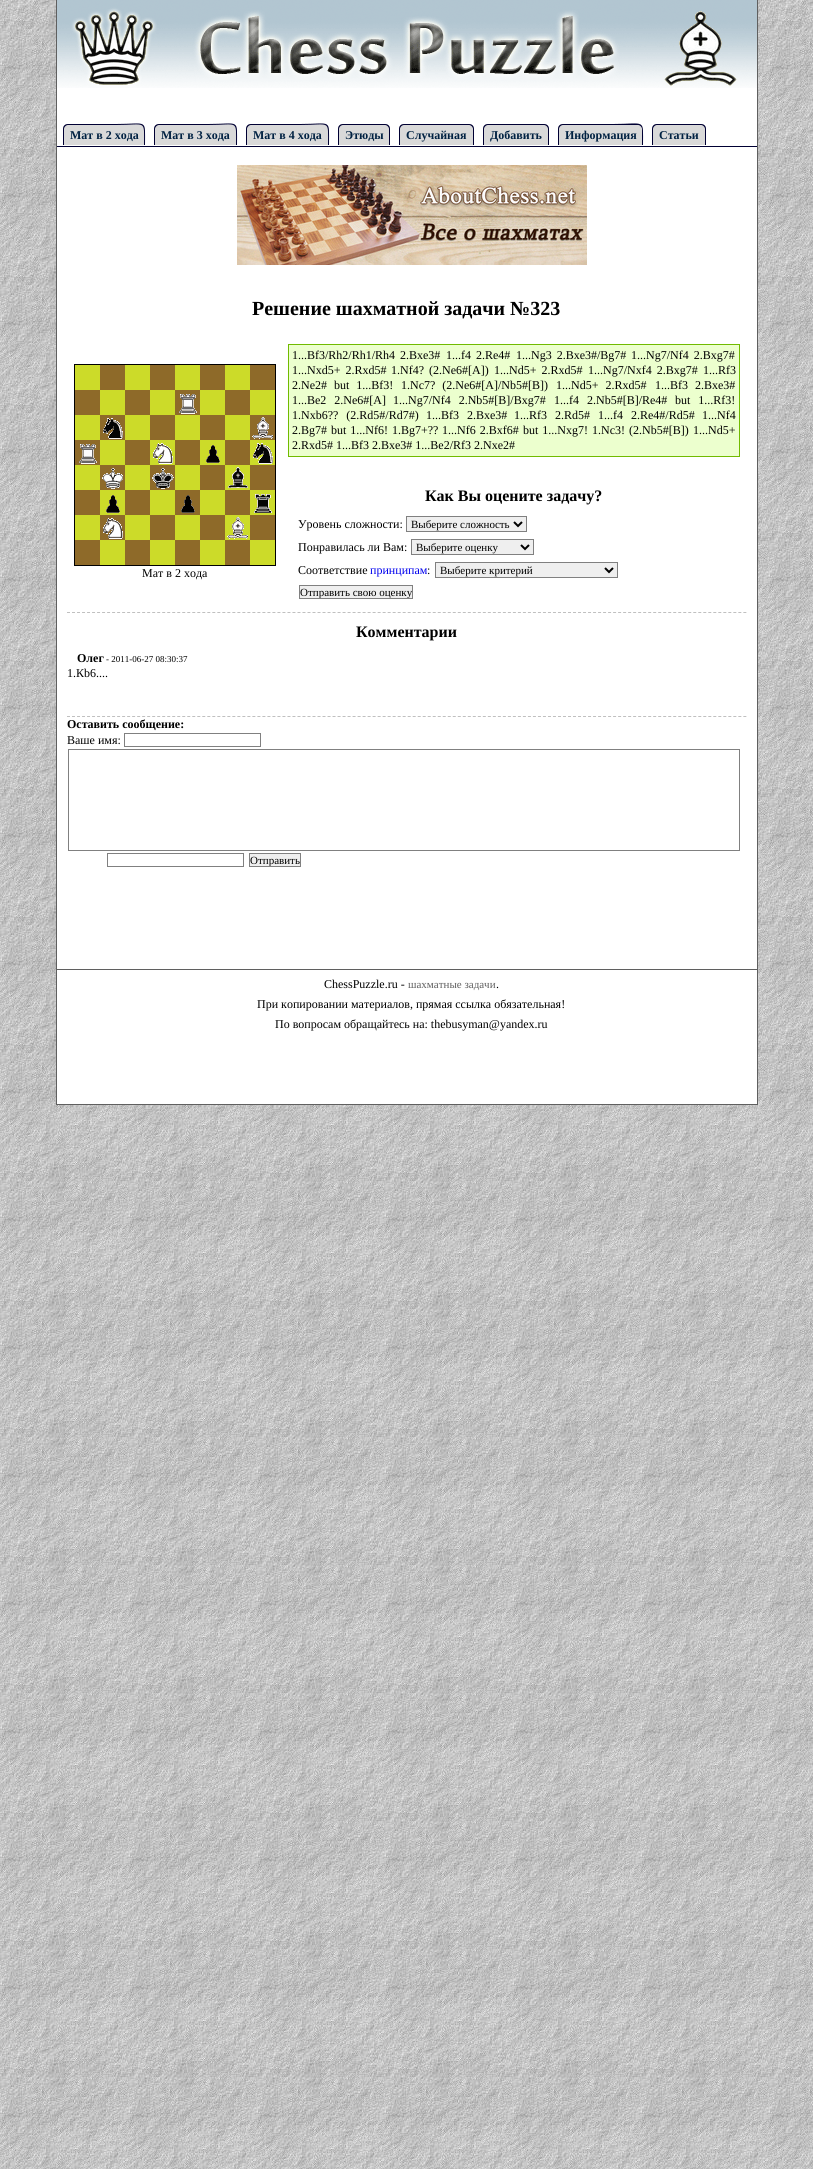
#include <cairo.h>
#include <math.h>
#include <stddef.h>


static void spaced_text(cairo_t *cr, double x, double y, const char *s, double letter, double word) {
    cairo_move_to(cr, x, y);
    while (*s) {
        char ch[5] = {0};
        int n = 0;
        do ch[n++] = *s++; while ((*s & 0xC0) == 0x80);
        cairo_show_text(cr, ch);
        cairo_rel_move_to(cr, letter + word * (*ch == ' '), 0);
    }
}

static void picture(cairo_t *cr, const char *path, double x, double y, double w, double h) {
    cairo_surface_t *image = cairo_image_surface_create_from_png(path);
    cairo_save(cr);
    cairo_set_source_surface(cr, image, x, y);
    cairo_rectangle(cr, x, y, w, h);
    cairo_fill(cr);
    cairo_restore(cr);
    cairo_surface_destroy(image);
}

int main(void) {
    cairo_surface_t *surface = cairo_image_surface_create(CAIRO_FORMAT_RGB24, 813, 2169);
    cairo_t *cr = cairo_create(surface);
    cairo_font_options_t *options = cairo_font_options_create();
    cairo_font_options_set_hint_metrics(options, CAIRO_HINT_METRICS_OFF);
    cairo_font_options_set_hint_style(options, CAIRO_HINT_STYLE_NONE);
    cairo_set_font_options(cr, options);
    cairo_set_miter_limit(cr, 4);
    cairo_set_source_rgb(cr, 1, 1, 1);
    cairo_paint(cr);
    picture(cr, "img1.png", 0, 0, 813, 2169);
    cairo_set_source_rgb(cr, 1, 1, 1);
    cairo_rectangle(cr, 57, 88, 700, 1016);
    cairo_fill(cr);
    cairo_set_source_rgb(cr, 0.373, 0.373, 0.373);
    cairo_rectangle(cr, 757, 0, 1, 1105);
    cairo_fill(cr);
    cairo_rectangle(cr, 56, 1104, 702, 1);
    cairo_fill(cr);
    cairo_rectangle(cr, 56, 0, 1, 1105);
    cairo_fill(cr);
    picture(cr, "img2.png", 57, 0, 700, 88);
    cairo_set_source_rgb(cr, 0, 0, 0.2);
    cairo_rectangle(cr, 57, 146, 700, 1);
    cairo_fill(cr);
    cairo_set_source_rgb(cr, 0.851, 0.851, 0.851);
    cairo_new_path(cr);
    cairo_move_to(cr, 68, 124);
    cairo_line_to(cr, 140, 124);
    cairo_curve_to(cr, 143, 124, 145, 126, 145, 129);
    cairo_line_to(cr, 145, 145);
    cairo_line_to(cr, 63, 145);
    cairo_line_to(cr, 63, 129);
    cairo_curve_to(cr, 63, 126, 65, 124, 68, 124);
    cairo_close_path(cr);
    cairo_fill(cr);
    cairo_set_source_rgb(cr, 0, 0, 0.2);
    cairo_set_fill_rule(cr, CAIRO_FILL_RULE_EVEN_ODD);
    cairo_new_path(cr);
    cairo_move_to(cr, 68, 124);
    cairo_line_to(cr, 116, 124);
    cairo_curve_to(cr, 148, 124, 145, 118, 145, 145);
    cairo_line_to(cr, 63, 145);
    cairo_line_to(cr, 63, 129);
    cairo_curve_to(cr, 63, 126, 65, 124, 68, 124);
    cairo_close_path(cr);
    cairo_move_to(cr, 68, 125);
    cairo_line_to(cr, 116, 125);
    cairo_curve_to(cr, 147, 125, 144, 119, 144, 145);
    cairo_line_to(cr, 64, 145);
    cairo_line_to(cr, 64, 129);
    cairo_curve_to(cr, 64, 127, 66, 125, 68, 125);
    cairo_close_path(cr);
    cairo_fill(cr);
    cairo_select_font_face(cr, "Liberation Serif", CAIRO_FONT_SLANT_NORMAL, CAIRO_FONT_WEIGHT_BOLD);
    cairo_set_font_size(cr, 12);
    cairo_set_source_rgb(cr, 0, 0.129, 0.259);
    cairo_move_to(cr, 70, 139);
    cairo_show_text(cr, "Мат в 2 хода");
    cairo_set_source_rgb(cr, 0.851, 0.851, 0.851);
    cairo_new_path(cr);
    cairo_move_to(cr, 159, 124);
    cairo_line_to(cr, 232, 124);
    cairo_curve_to(cr, 235, 124, 237, 126, 237, 129);
    cairo_line_to(cr, 237, 145);
    cairo_line_to(cr, 154, 145);
    cairo_line_to(cr, 154, 129);
    cairo_curve_to(cr, 154, 126, 156, 124, 159, 124);
    cairo_close_path(cr);
    cairo_fill(cr);
    cairo_set_source_rgb(cr, 0, 0, 0.2);
    cairo_new_path(cr);
    cairo_move_to(cr, 159, 124);
    cairo_line_to(cr, 208, 124);
    cairo_curve_to(cr, 240, 124, 237, 118, 237, 145);
    cairo_line_to(cr, 154, 145);
    cairo_line_to(cr, 154, 129);
    cairo_curve_to(cr, 154, 126, 156, 124, 159, 124);
    cairo_close_path(cr);
    cairo_move_to(cr, 159, 125);
    cairo_line_to(cr, 208, 125);
    cairo_curve_to(cr, 239, 125, 236, 119, 236, 145);
    cairo_line_to(cr, 155, 145);
    cairo_line_to(cr, 155, 129);
    cairo_curve_to(cr, 155, 127, 157, 125, 159, 125);
    cairo_close_path(cr);
    cairo_fill(cr);
    cairo_set_source_rgb(cr, 0, 0.129, 0.259);
    cairo_move_to(cr, 161, 139);
    cairo_show_text(cr, "Мат в 3 хода");
    cairo_set_source_rgb(cr, 0.851, 0.851, 0.851);
    cairo_new_path(cr);
    cairo_move_to(cr, 251, 124);
    cairo_line_to(cr, 324, 124);
    cairo_curve_to(cr, 327, 124, 329, 126, 329, 129);
    cairo_line_to(cr, 329, 145);
    cairo_line_to(cr, 246, 145);
    cairo_line_to(cr, 246, 129);
    cairo_curve_to(cr, 246, 126, 248, 124, 251, 124);
    cairo_close_path(cr);
    cairo_fill(cr);
    cairo_set_source_rgb(cr, 0, 0, 0.2);
    cairo_new_path(cr);
    cairo_move_to(cr, 251, 124);
    cairo_line_to(cr, 300, 124);
    cairo_curve_to(cr, 332, 124, 329, 118, 329, 145);
    cairo_line_to(cr, 246, 145);
    cairo_line_to(cr, 246, 129);
    cairo_curve_to(cr, 246, 126, 248, 124, 251, 124);
    cairo_close_path(cr);
    cairo_move_to(cr, 251, 125);
    cairo_line_to(cr, 300, 125);
    cairo_curve_to(cr, 331, 125, 328, 119, 328, 145);
    cairo_line_to(cr, 247, 145);
    cairo_line_to(cr, 247, 129);
    cairo_curve_to(cr, 247, 127, 249, 125, 251, 125);
    cairo_close_path(cr);
    cairo_fill(cr);
    cairo_set_source_rgb(cr, 0, 0.129, 0.259);
    cairo_move_to(cr, 253, 139);
    cairo_show_text(cr, "Мат в 4 хода");
    cairo_set_source_rgb(cr, 0.851, 0.851, 0.851);
    cairo_new_path(cr);
    cairo_move_to(cr, 343, 124);
    cairo_line_to(cr, 385, 124);
    cairo_curve_to(cr, 388, 124, 390, 126, 390, 129);
    cairo_line_to(cr, 390, 145);
    cairo_line_to(cr, 338, 145);
    cairo_line_to(cr, 338, 129);
    cairo_curve_to(cr, 338, 126, 340, 124, 343, 124);
    cairo_close_path(cr);
    cairo_fill(cr);
    cairo_set_source_rgb(cr, 0, 0, 0.2);
    cairo_new_path(cr);
    cairo_move_to(cr, 343, 124);
    cairo_line_to(cr, 385, 124);
    cairo_curve_to(cr, 388, 124, 390, 126, 390, 129);
    cairo_line_to(cr, 390, 145);
    cairo_line_to(cr, 338, 145);
    cairo_line_to(cr, 338, 129);
    cairo_curve_to(cr, 338, 126, 340, 124, 343, 124);
    cairo_close_path(cr);
    cairo_move_to(cr, 343, 125);
    cairo_line_to(cr, 385, 125);
    cairo_curve_to(cr, 387, 125, 389, 127, 389, 129);
    cairo_line_to(cr, 389, 145);
    cairo_line_to(cr, 339, 145);
    cairo_line_to(cr, 339, 129);
    cairo_curve_to(cr, 339, 127, 341, 125, 343, 125);
    cairo_close_path(cr);
    cairo_fill(cr);
    cairo_set_source_rgb(cr, 0, 0.129, 0.259);
    cairo_move_to(cr, 345, 139);
    cairo_show_text(cr, "Этюды");
    cairo_set_source_rgb(cr, 0.851, 0.851, 0.851);
    cairo_new_path(cr);
    cairo_move_to(cr, 404, 124);
    cairo_line_to(cr, 469, 124);
    cairo_curve_to(cr, 472, 124, 474, 126, 474, 129);
    cairo_line_to(cr, 474, 145);
    cairo_line_to(cr, 399, 145);
    cairo_line_to(cr, 399, 129);
    cairo_curve_to(cr, 399, 126, 401, 124, 404, 124);
    cairo_close_path(cr);
    cairo_fill(cr);
    cairo_set_source_rgb(cr, 0, 0, 0.2);
    cairo_new_path(cr);
    cairo_move_to(cr, 404, 124);
    cairo_line_to(cr, 469, 124);
    cairo_curve_to(cr, 472, 124, 474, 126, 474, 129);
    cairo_line_to(cr, 474, 145);
    cairo_line_to(cr, 399, 145);
    cairo_line_to(cr, 399, 129);
    cairo_curve_to(cr, 399, 126, 401, 124, 404, 124);
    cairo_close_path(cr);
    cairo_move_to(cr, 404, 125);
    cairo_line_to(cr, 469, 125);
    cairo_curve_to(cr, 471, 125, 473, 127, 473, 129);
    cairo_line_to(cr, 473, 145);
    cairo_line_to(cr, 400, 145);
    cairo_line_to(cr, 400, 129);
    cairo_curve_to(cr, 400, 127, 402, 125, 404, 125);
    cairo_close_path(cr);
    cairo_fill(cr);
    cairo_set_source_rgb(cr, 0, 0.129, 0.259);
    cairo_move_to(cr, 406, 139);
    cairo_show_text(cr, "Случайная");
    cairo_set_source_rgb(cr, 0.851, 0.851, 0.851);
    cairo_new_path(cr);
    cairo_move_to(cr, 488, 124);
    cairo_line_to(cr, 544, 124);
    cairo_curve_to(cr, 547, 124, 549, 126, 549, 129);
    cairo_line_to(cr, 549, 145);
    cairo_line_to(cr, 483, 145);
    cairo_line_to(cr, 483, 129);
    cairo_curve_to(cr, 483, 126, 485, 124, 488, 124);
    cairo_close_path(cr);
    cairo_fill(cr);
    cairo_set_source_rgb(cr, 0, 0, 0.2);
    cairo_new_path(cr);
    cairo_move_to(cr, 488, 124);
    cairo_line_to(cr, 544, 124);
    cairo_curve_to(cr, 547, 124, 549, 126, 549, 129);
    cairo_line_to(cr, 549, 145);
    cairo_line_to(cr, 483, 145);
    cairo_line_to(cr, 483, 129);
    cairo_curve_to(cr, 483, 126, 485, 124, 488, 124);
    cairo_close_path(cr);
    cairo_move_to(cr, 488, 125);
    cairo_line_to(cr, 544, 125);
    cairo_curve_to(cr, 546, 125, 548, 127, 548, 129);
    cairo_line_to(cr, 548, 145);
    cairo_line_to(cr, 484, 145);
    cairo_line_to(cr, 484, 129);
    cairo_curve_to(cr, 484, 127, 486, 125, 488, 125);
    cairo_close_path(cr);
    cairo_fill(cr);
    cairo_set_source_rgb(cr, 0, 0.129, 0.259);
    cairo_move_to(cr, 490, 139);
    cairo_show_text(cr, "Добавить");
    cairo_set_source_rgb(cr, 0.851, 0.851, 0.851);
    cairo_new_path(cr);
    cairo_move_to(cr, 563, 124);
    cairo_line_to(cr, 638, 124);
    cairo_curve_to(cr, 641, 124, 643, 126, 643, 129);
    cairo_line_to(cr, 643, 145);
    cairo_line_to(cr, 558, 145);
    cairo_line_to(cr, 558, 129);
    cairo_curve_to(cr, 558, 126, 560, 124, 563, 124);
    cairo_close_path(cr);
    cairo_fill(cr);
    cairo_set_source_rgb(cr, 0, 0, 0.2);
    cairo_new_path(cr);
    cairo_move_to(cr, 563, 124);
    cairo_line_to(cr, 613, 124);
    cairo_curve_to(cr, 646, 124, 643, 118, 643, 145);
    cairo_line_to(cr, 558, 145);
    cairo_line_to(cr, 558, 129);
    cairo_curve_to(cr, 558, 126, 560, 124, 563, 124);
    cairo_close_path(cr);
    cairo_move_to(cr, 563, 125);
    cairo_line_to(cr, 638, 125);
    cairo_curve_to(cr, 640, 125, 642, 127, 642, 129);
    cairo_line_to(cr, 642, 145);
    cairo_line_to(cr, 559, 145);
    cairo_line_to(cr, 559, 129);
    cairo_curve_to(cr, 559, 127, 561, 125, 563, 125);
    cairo_close_path(cr);
    cairo_fill(cr);
    cairo_set_source_rgb(cr, 0, 0.129, 0.259);
    cairo_move_to(cr, 565, 139);
    cairo_show_text(cr, "Информация");
    cairo_set_source_rgb(cr, 0.851, 0.851, 0.851);
    cairo_new_path(cr);
    cairo_move_to(cr, 657, 124);
    cairo_line_to(cr, 701, 124);
    cairo_curve_to(cr, 704, 124, 706, 126, 706, 129);
    cairo_line_to(cr, 706, 145);
    cairo_line_to(cr, 652, 145);
    cairo_line_to(cr, 652, 129);
    cairo_curve_to(cr, 652, 126, 654, 124, 657, 124);
    cairo_close_path(cr);
    cairo_fill(cr);
    cairo_set_source_rgb(cr, 0, 0, 0.2);
    cairo_new_path(cr);
    cairo_move_to(cr, 657, 124);
    cairo_line_to(cr, 701, 124);
    cairo_curve_to(cr, 704, 124, 706, 126, 706, 129);
    cairo_line_to(cr, 706, 145);
    cairo_line_to(cr, 652, 145);
    cairo_line_to(cr, 652, 129);
    cairo_curve_to(cr, 652, 126, 654, 124, 657, 124);
    cairo_close_path(cr);
    cairo_move_to(cr, 657, 125);
    cairo_line_to(cr, 701, 125);
    cairo_curve_to(cr, 703, 125, 705, 127, 705, 129);
    cairo_line_to(cr, 705, 145);
    cairo_line_to(cr, 653, 145);
    cairo_line_to(cr, 653, 129);
    cairo_curve_to(cr, 653, 127, 655, 125, 657, 125);
    cairo_close_path(cr);
    cairo_fill(cr);
    cairo_set_source_rgb(cr, 0, 0.129, 0.259);
    cairo_move_to(cr, 659, 139);
    cairo_show_text(cr, "Статьи");
    picture(cr, "img3.png", 237, 165, 350, 100);
    cairo_set_font_size(cr, 20);
    cairo_set_source_rgb(cr, 0, 0, 0);
    cairo_move_to(cr, 252, 315);
    cairo_show_text(cr, "Решение шахматной задачи №323");
    picture(cr, "img4.png", 74, 364, 202, 202);
    cairo_select_font_face(cr, "Liberation Serif", CAIRO_FONT_SLANT_NORMAL, CAIRO_FONT_WEIGHT_NORMAL);
    cairo_set_font_size(cr, 12);
    cairo_move_to(cr, 142, 577);
    cairo_show_text(cr, "Мат в 2 хода");
    cairo_set_source_rgb(cr, 0.925, 1, 0.808);
    cairo_rectangle(cr, 288.5, 344.5, 451, 112);
    cairo_fill_preserve(cr);
    cairo_set_source_rgb(cr, 0.443, 0.733, 0);
    cairo_set_line_width(cr, 1);
    cairo_stroke(cr);
    cairo_set_source_rgb(cr, 0, 0, 0);
    spaced_text(cr, 292, 359, "1...Bf3/Rh2/Rh1/Rh4 2.Bxe3#", 0, 2);
    spaced_text(cr, 446, 359, "1...f4 2.Re4#", 0, 2);
    spaced_text(cr, 516, 359, "1...Ng3 2.Bxe3#/Bg7#", 0, 2);
    spaced_text(cr, 631, 359, "1...Ng7/Nf4 2.Bxg7#", 0, 2);
    spaced_text(cr, 292, 374, "1...Nxd5+ 2.Rxd5#", 0, 2);
    spaced_text(cr, 391, 374, "1.Nf4? (2.Ne6#[A])", 0, 2);
    spaced_text(cr, 494, 374, "1...Nd5+ 2.Rxd5#", 0, 2);
    spaced_text(cr, 588, 374, "1...Ng7/Nxf4 2.Bxg7#", 0, 2);
    cairo_move_to(cr, 703, 374);
    cairo_show_text(cr, "1...Rf3");
    cairo_move_to(cr, 292, 389);
    cairo_show_text(cr, "2.Ne2#");
    spaced_text(cr, 334, 389, "but 1...Bf3!", 0, 4);
    spaced_text(cr, 401, 389, "1.Nc7? (2.Ne6#[A]/Nb5#[B])", 0, 4);
    spaced_text(cr, 556, 389, "1...Nd5+ 2.Rxd5#", 0, 4);
    spaced_text(cr, 655, 389, "1...Bf3 2.Bxe3#", 0, 4);
    spaced_text(cr, 292, 404, "1...Be2 2.Ne6#[A]", 0, 5);
    spaced_text(cr, 393, 404, "1...Ng7/Nf4 2.Nb5#[B]/Bxg7#", 0, 5);
    spaced_text(cr, 554, 404, "1...f4 2.Nb5#[B]/Re4#", 0, 5);
    spaced_text(cr, 675, 404, "but 1...Rf3!", 0, 5);
    spaced_text(cr, 292, 419, "1.Nxb6?\077 (2.Rd5#/Rd7#)", 0, 5);
    spaced_text(cr, 426, 419, "1...Bf3 2.Bxe3#", 0, 5);
    spaced_text(cr, 514, 419, "1...Rf3 2.Rd5#", 0, 5);
    spaced_text(cr, 598, 419, "1...f4 2.Re4#/Rd5#", 0, 5);
    cairo_move_to(cr, 702, 419);
    cairo_show_text(cr, "1...Nf4");
    cairo_move_to(cr, 292, 434);
    cairo_show_text(cr, "2.Bg7#");
    spaced_text(cr, 331, 434, "but 1...Nf6!", 0, 1);
    cairo_move_to(cr, 392, 434);
    cairo_show_text(cr, "1.Bg7+?\077");
    spaced_text(cr, 442, 434, "1...Nf6 2.Bxf6#", 0, 1);
    spaced_text(cr, 523, 434, "but 1...Nxg7!", 0, 1);
    spaced_text(cr, 592, 434, "1.Nc3! (2.Nb5#[B])", 0, 1);
    cairo_move_to(cr, 693, 434);
    cairo_show_text(cr, "1...Nd5+");
    cairo_move_to(cr, 292, 449);
    cairo_show_text(cr, "2.Rxd5# 1...Bf3 2.Bxe3# 1...Be2/Rf3 2.Nxe2#");
    cairo_select_font_face(cr, "Liberation Serif", CAIRO_FONT_SLANT_NORMAL, CAIRO_FONT_WEIGHT_BOLD);
    cairo_set_font_size(cr, 16);
    cairo_move_to(cr, 425, 501);
    cairo_show_text(cr, "Как Вы оцените задачу?");
    cairo_select_font_face(cr, "Liberation Serif", CAIRO_FONT_SLANT_NORMAL, CAIRO_FONT_WEIGHT_NORMAL);
    cairo_set_font_size(cr, 12);
    cairo_move_to(cr, 298, 528);
    cairo_show_text(cr, "Уровень сложности:");
    cairo_set_source_rgb(cr, 0.937, 0.937, 0.937);
    cairo_rectangle(cr, 406.5, 516.5, 120, 15);
    cairo_fill_preserve(cr);
    cairo_set_source_rgb(cr, 0.502, 0.502, 0.502);
    cairo_stroke(cr);
    cairo_new_path(cr);
    cairo_move_to(cr, 514, 522);
    cairo_line_to(cr, 518, 526);
    cairo_line_to(cr, 522, 522);
    cairo_set_source_rgb(cr, 0, 0, 0);
    cairo_set_line_width(cr, 2);
    cairo_stroke(cr);
    cairo_set_font_size(cr, 11);
    cairo_move_to(cr, 411, 528);
    cairo_show_text(cr, "Выберите сложность");
    cairo_set_font_size(cr, 12);
    cairo_move_to(cr, 298, 551);
    cairo_show_text(cr, "Понравилась ли Вам:");
    cairo_set_source_rgb(cr, 0.937, 0.937, 0.937);
    cairo_rectangle(cr, 411.5, 539.5, 122, 15);
    cairo_fill_preserve(cr);
    cairo_set_source_rgb(cr, 0.502, 0.502, 0.502);
    cairo_set_line_width(cr, 1);
    cairo_stroke(cr);
    cairo_new_path(cr);
    cairo_move_to(cr, 521, 545);
    cairo_line_to(cr, 525, 549);
    cairo_line_to(cr, 529, 545);
    cairo_set_source_rgb(cr, 0, 0, 0);
    cairo_set_line_width(cr, 2);
    cairo_stroke(cr);
    cairo_set_font_size(cr, 11);
    cairo_move_to(cr, 416, 551);
    cairo_show_text(cr, "Выберите оценку");
    cairo_set_font_size(cr, 12);
    cairo_move_to(cr, 298, 574);
    cairo_show_text(cr, "Соответствие");
    cairo_set_source_rgb(cr, 0, 0, 0.933);
    cairo_move_to(cr, 370, 574);
    cairo_show_text(cr, "принципам");
    cairo_set_source_rgb(cr, 0, 0, 0);
    cairo_move_to(cr, 427, 574);
    cairo_show_text(cr, ":");
    cairo_set_source_rgb(cr, 0.937, 0.937, 0.937);
    cairo_rectangle(cr, 435.5, 562.5, 182, 15);
    cairo_fill_preserve(cr);
    cairo_set_source_rgb(cr, 0.502, 0.502, 0.502);
    cairo_set_line_width(cr, 1);
    cairo_stroke(cr);
    cairo_new_path(cr);
    cairo_move_to(cr, 605, 568);
    cairo_line_to(cr, 609, 572);
    cairo_line_to(cr, 613, 568);
    cairo_set_source_rgb(cr, 0, 0, 0);
    cairo_set_line_width(cr, 2);
    cairo_stroke(cr);
    cairo_set_font_size(cr, 11);
    cairo_move_to(cr, 440, 574);
    cairo_show_text(cr, "Выберите критерий");
    cairo_set_source_rgb(cr, 0.937, 0.937, 0.937);
    cairo_rectangle(cr, 299.5, 585.5, 113, 13);
    cairo_fill_preserve(cr);
    cairo_set_source_rgb(cr, 0.502, 0.502, 0.502);
    cairo_set_line_width(cr, 1);
    cairo_stroke(cr);
    cairo_save(cr);
    cairo_set_fill_rule(cr, CAIRO_FILL_RULE_WINDING);
    cairo_rectangle(cr, 300, 586, 112, 12);
    cairo_clip(cr);
    cairo_set_source_rgb(cr, 0, 0, 0);
    cairo_move_to(cr, 300, 596);
    cairo_show_text(cr, "Отправить свою оценку");
    cairo_restore(cr);
    cairo_new_path(cr);
    cairo_move_to(cr, 67, 612.5);
    cairo_line_to(cr, 747, 612.5);
    cairo_set_source_rgb(cr, 0.753, 0.753, 0.753);
    cairo_set_dash(cr, (double[]){3, 2.01}, 2, 0);
    cairo_stroke(cr);
    cairo_select_font_face(cr, "Liberation Serif", CAIRO_FONT_SLANT_NORMAL, CAIRO_FONT_WEIGHT_BOLD);
    cairo_set_font_size(cr, 16);
    cairo_set_source_rgb(cr, 0, 0, 0);
    cairo_move_to(cr, 356, 637);
    cairo_show_text(cr, "Комментарии");
    cairo_set_font_size(cr, 12);
    cairo_move_to(cr, 77, 662);
    cairo_show_text(cr, "Олег");
    cairo_select_font_face(cr, "Liberation Serif", CAIRO_FONT_SLANT_NORMAL, CAIRO_FONT_WEIGHT_NORMAL);
    cairo_set_font_size(cr, 9);
    cairo_move_to(cr, 106, 662);
    cairo_show_text(cr, "- 2011-06-27 08:30:37");
    cairo_set_font_size(cr, 12);
    cairo_move_to(cr, 67, 677);
    cairo_show_text(cr, "1.Кb6....");
    cairo_new_path(cr);
    cairo_move_to(cr, 67, 716.5);
    cairo_line_to(cr, 747, 716.5);
    cairo_set_source_rgb(cr, 0.753, 0.753, 0.753);
    cairo_stroke(cr);
    cairo_select_font_face(cr, "Liberation Serif", CAIRO_FONT_SLANT_NORMAL, CAIRO_FONT_WEIGHT_BOLD);
    cairo_set_source_rgb(cr, 0, 0, 0);
    cairo_move_to(cr, 67, 728);
    cairo_show_text(cr, "Оставить сообщение:");
    cairo_select_font_face(cr, "Liberation Serif", CAIRO_FONT_SLANT_NORMAL, CAIRO_FONT_WEIGHT_NORMAL);
    cairo_move_to(cr, 67, 744);
    cairo_show_text(cr, "Ваше имя:");
    cairo_rectangle(cr, 124.5, 733.5, 136, 13);
    cairo_set_source_rgb(cr, 0.502, 0.502, 0.502);
    cairo_set_dash(cr, NULL, 0, 0);
    cairo_stroke(cr);
    cairo_rectangle(cr, 68.5, 749.5, 671, 101);
    cairo_stroke(cr);
    cairo_rectangle(cr, 107.5, 853.5, 136, 13);
    cairo_stroke(cr);
    cairo_set_source_rgb(cr, 0.937, 0.937, 0.937);
    cairo_rectangle(cr, 249.5, 853.5, 51, 13);
    cairo_fill_preserve(cr);
    cairo_set_source_rgb(cr, 0.502, 0.502, 0.502);
    cairo_stroke(cr);
    cairo_save(cr);
    cairo_set_fill_rule(cr, CAIRO_FILL_RULE_WINDING);
    cairo_rectangle(cr, 250, 854, 50, 12);
    cairo_clip(cr);
    cairo_set_font_size(cr, 11);
    cairo_set_source_rgb(cr, 0, 0, 0);
    cairo_move_to(cr, 250, 864);
    cairo_show_text(cr, "Отправить");
    cairo_restore(cr);
    cairo_set_source_rgb(cr, 0.373, 0.373, 0.373);
    cairo_rectangle(cr, 57, 969, 700, 1);
    cairo_fill(cr);
    cairo_set_source_rgb(cr, 0, 0, 0);
    cairo_move_to(cr, 324, 988);
    cairo_show_text(cr, "ChessPuzzle.ru -");
    cairo_set_font_size(cr, 11);
    cairo_set_source_rgb(cr, 0.373, 0.373, 0.373);
    cairo_move_to(cr, 408, 988);
    cairo_show_text(cr, "шахматные задачи");
    cairo_set_font_size(cr, 12);
    cairo_set_source_rgb(cr, 0, 0, 0);
    cairo_move_to(cr, 496, 988);
    cairo_show_text(cr, ".");
    cairo_move_to(cr, 257, 1008);
    cairo_show_text(cr, "При копировании материалов, прямая ссылка обязательная!");
    cairo_move_to(cr, 275, 1028);
    cairo_show_text(cr, "По вопросам обращайтесь на: thebusyman@yandex.ru");
    cairo_surface_write_to_png(surface, "page.png");
    cairo_font_options_destroy(options);
    cairo_destroy(cr);
    cairo_surface_destroy(surface);
    return 0;
}
